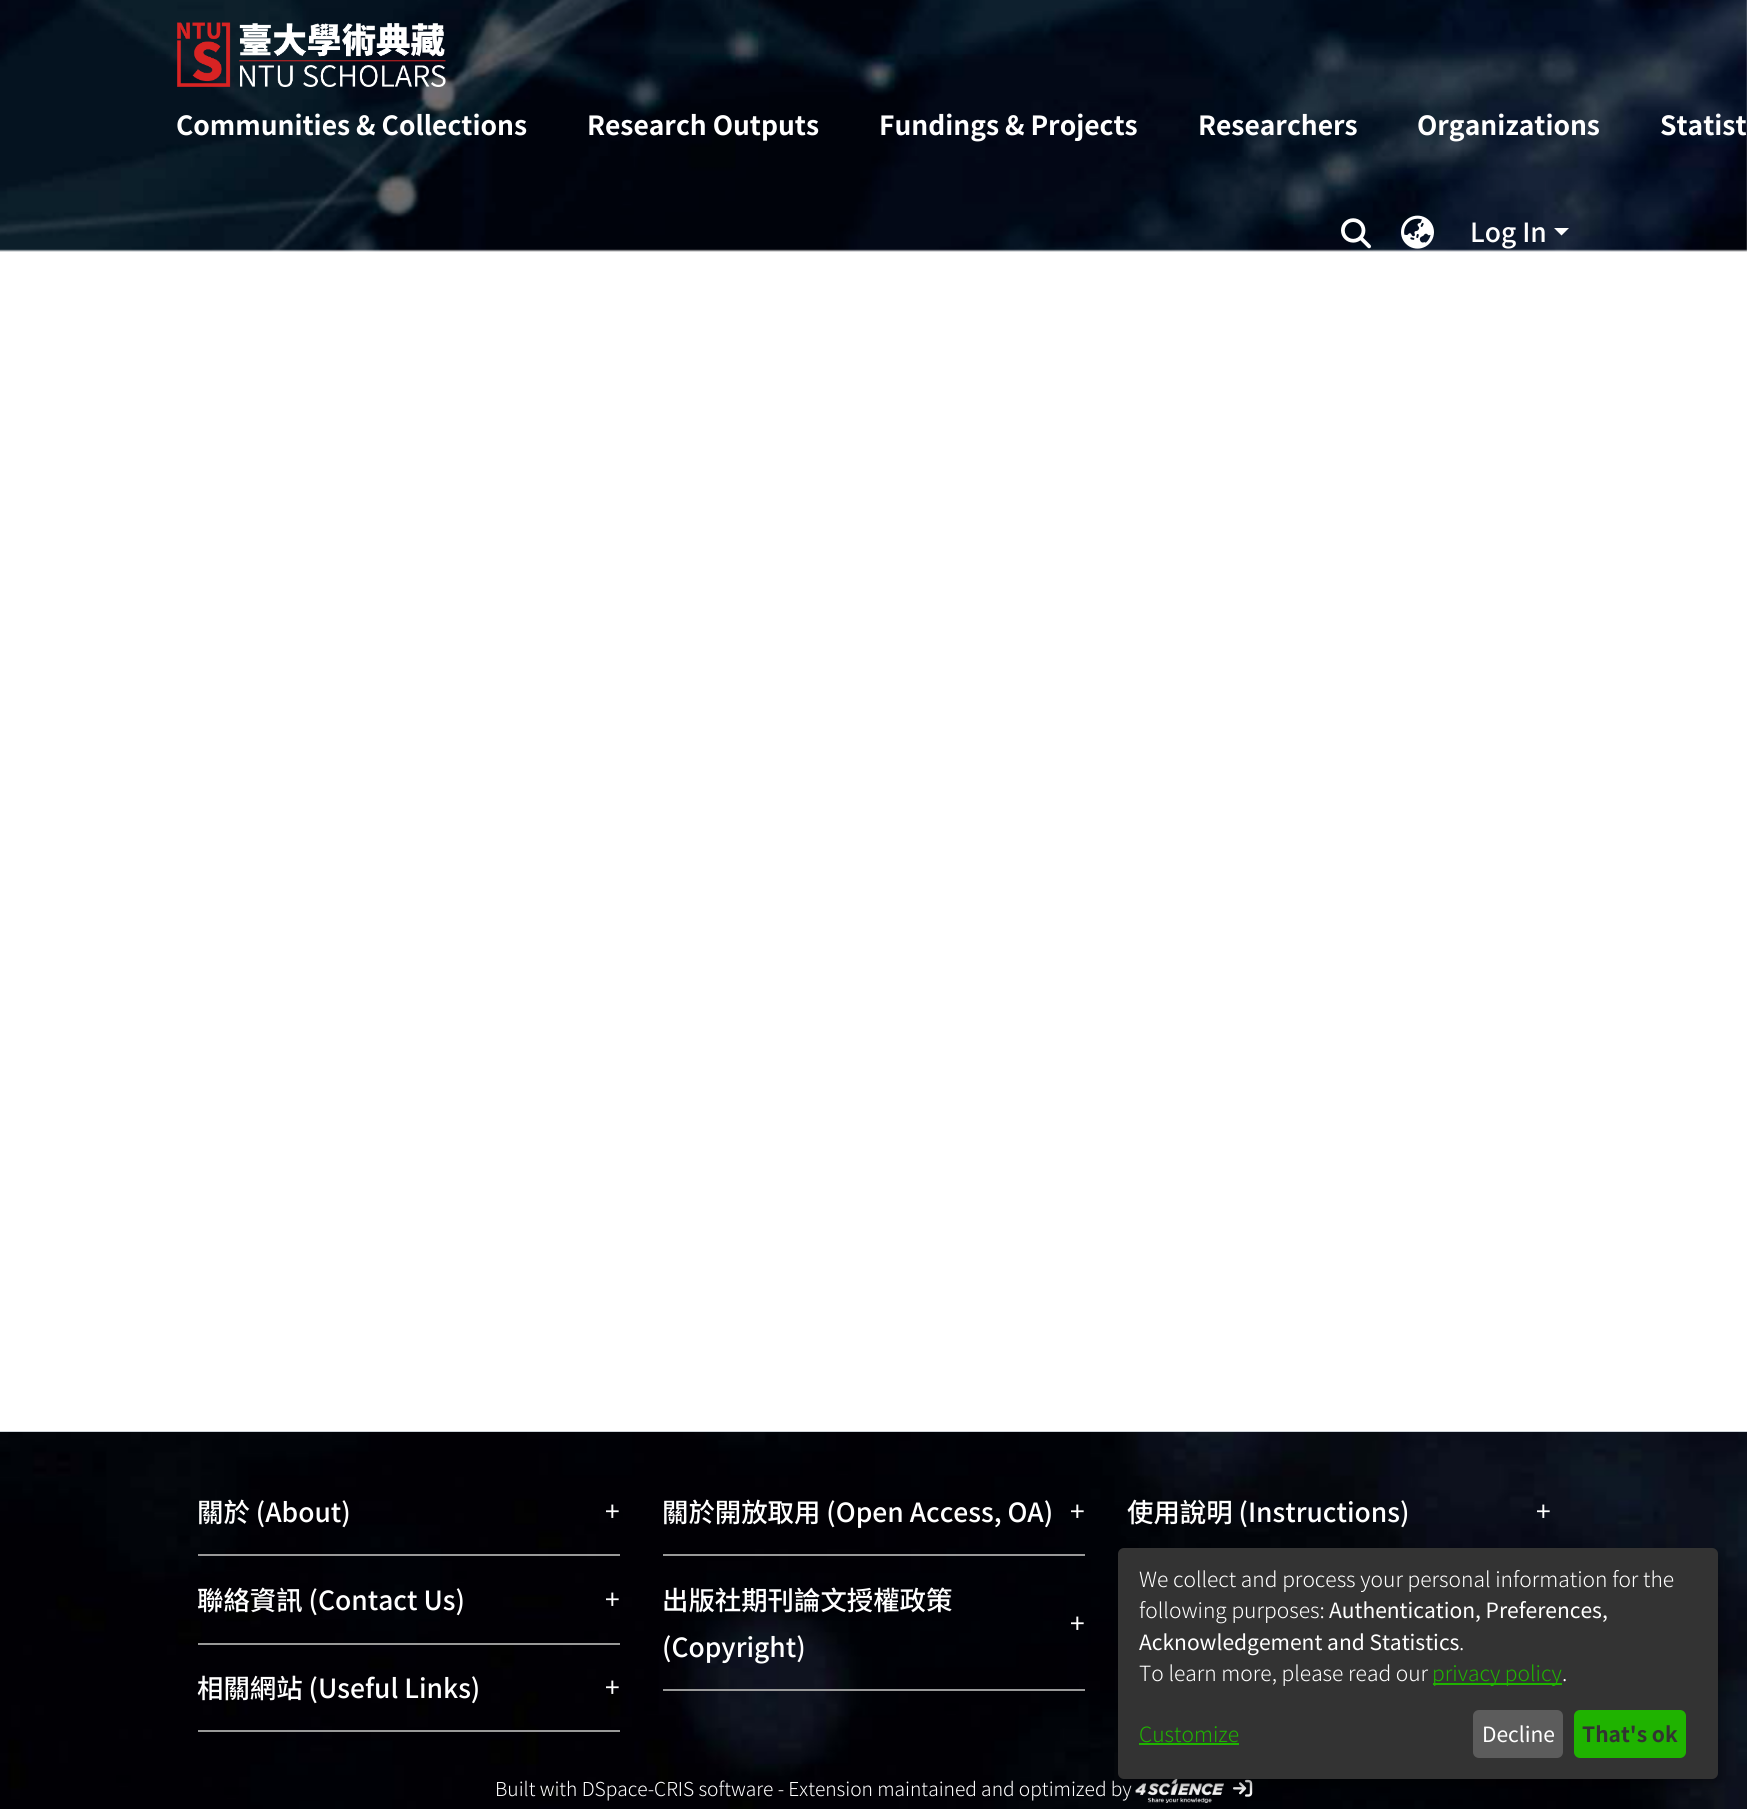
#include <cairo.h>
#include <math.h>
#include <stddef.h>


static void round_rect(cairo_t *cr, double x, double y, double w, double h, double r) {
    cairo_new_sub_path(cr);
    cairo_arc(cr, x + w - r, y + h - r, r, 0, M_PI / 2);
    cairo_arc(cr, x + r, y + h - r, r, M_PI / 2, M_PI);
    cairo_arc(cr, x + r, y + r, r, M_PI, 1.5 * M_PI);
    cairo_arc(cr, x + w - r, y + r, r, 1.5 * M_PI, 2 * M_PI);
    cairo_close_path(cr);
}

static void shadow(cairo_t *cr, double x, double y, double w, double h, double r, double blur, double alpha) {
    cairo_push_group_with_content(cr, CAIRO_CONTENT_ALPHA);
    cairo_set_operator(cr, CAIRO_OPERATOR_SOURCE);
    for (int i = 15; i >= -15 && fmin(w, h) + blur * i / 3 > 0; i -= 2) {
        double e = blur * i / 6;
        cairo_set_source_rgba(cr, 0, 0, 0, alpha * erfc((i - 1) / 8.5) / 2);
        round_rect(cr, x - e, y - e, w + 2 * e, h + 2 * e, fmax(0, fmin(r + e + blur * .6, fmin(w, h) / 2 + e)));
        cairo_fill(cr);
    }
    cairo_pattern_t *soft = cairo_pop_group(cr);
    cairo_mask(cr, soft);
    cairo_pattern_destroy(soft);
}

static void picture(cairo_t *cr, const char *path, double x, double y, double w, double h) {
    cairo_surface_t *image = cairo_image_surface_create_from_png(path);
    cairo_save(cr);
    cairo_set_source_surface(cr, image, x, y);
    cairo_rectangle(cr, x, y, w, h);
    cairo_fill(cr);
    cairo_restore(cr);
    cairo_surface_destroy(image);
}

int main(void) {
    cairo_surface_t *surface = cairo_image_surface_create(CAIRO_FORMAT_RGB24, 1747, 1809);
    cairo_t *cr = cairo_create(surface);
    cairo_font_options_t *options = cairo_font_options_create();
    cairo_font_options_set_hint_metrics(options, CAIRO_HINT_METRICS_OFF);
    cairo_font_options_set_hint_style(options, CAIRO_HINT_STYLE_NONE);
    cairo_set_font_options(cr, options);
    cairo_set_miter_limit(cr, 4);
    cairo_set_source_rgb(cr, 1, 1, 1);
    cairo_paint(cr);
    picture(cr, "img1.png", 0, 0, 1747, 252);
    picture(cr, "img2.png", 177, 22, 269, 65);
    cairo_select_font_face(cr, "Noto Sans TC", CAIRO_FONT_SLANT_NORMAL, CAIRO_FONT_WEIGHT_BOLD);
    cairo_set_font_size(cr, 26.4);
    cairo_set_source_rgb(cr, 1, 1, 1);
    cairo_move_to(cr, 176, 135);
    cairo_show_text(cr, "Communities & Collections");
    cairo_move_to(cr, 587, 135);
    cairo_show_text(cr, "Research Outputs");
    cairo_move_to(cr, 879, 135);
    cairo_show_text(cr, "Fundings & Projects");
    cairo_move_to(cr, 1198, 135);
    cairo_show_text(cr, "Researchers");
    cairo_move_to(cr, 1417, 135);
    cairo_show_text(cr, "Organizations");
    cairo_move_to(cr, 1660, 135);
    cairo_show_text(cr, "Statist");
    picture(cr, "img3.png", 1341, 218, 30, 31);
    picture(cr, "img4.png", 1401, 215, 33, 34);
    cairo_select_font_face(cr, "Noto Sans TC Medium", CAIRO_FONT_SLANT_NORMAL, CAIRO_FONT_WEIGHT_NORMAL);
    cairo_move_to(cr, 1470, 242);
    cairo_show_text(cr, "Log In");
    cairo_new_path(cr);
    cairo_move_to(cr, 1554, 228);
    cairo_line_to(cr, 1569, 228);
    cairo_line_to(cr, 1561.5, 235.5);
    cairo_close_path(cr);
    cairo_fill(cr);
    cairo_set_source_rgb(cr, 0.808, 0.831, 0.855);
    cairo_rectangle(cr, 0, 1431, 1747, 1);
    cairo_fill(cr);
    picture(cr, "img5.png", 0, 1432, 1747, 377);
    cairo_set_source_rgb(cr, 0.6, 0.6, 0.6);
    cairo_rectangle(cr, 198, 1554, 422, 2);
    cairo_fill(cr);
    cairo_set_source_rgb(cr, 1, 1, 1);
    cairo_move_to(cr, 197, 1522);
    cairo_show_text(cr, "關於 (About)");
    cairo_select_font_face(cr, "Noto Sans TC", CAIRO_FONT_SLANT_NORMAL, CAIRO_FONT_WEIGHT_NORMAL);
    cairo_move_to(cr, 605, 1521);
    cairo_show_text(cr, "+");
    cairo_set_source_rgb(cr, 0.6, 0.6, 0.6);
    cairo_rectangle(cr, 198, 1643, 422, 2);
    cairo_fill(cr);
    cairo_select_font_face(cr, "Noto Sans TC Medium", CAIRO_FONT_SLANT_NORMAL, CAIRO_FONT_WEIGHT_NORMAL);
    cairo_set_source_rgb(cr, 1, 1, 1);
    cairo_move_to(cr, 197, 1610);
    cairo_show_text(cr, "聯絡資訊 (Contact Us)");
    cairo_select_font_face(cr, "Noto Sans TC", CAIRO_FONT_SLANT_NORMAL, CAIRO_FONT_WEIGHT_NORMAL);
    cairo_move_to(cr, 605, 1609);
    cairo_show_text(cr, "+");
    cairo_set_source_rgb(cr, 0.6, 0.6, 0.6);
    cairo_rectangle(cr, 198, 1730, 422, 2);
    cairo_fill(cr);
    cairo_select_font_face(cr, "Noto Sans TC Medium", CAIRO_FONT_SLANT_NORMAL, CAIRO_FONT_WEIGHT_NORMAL);
    cairo_set_source_rgb(cr, 1, 1, 1);
    cairo_move_to(cr, 197, 1698);
    cairo_show_text(cr, "相關網站 (Useful Links)");
    cairo_select_font_face(cr, "Noto Sans TC", CAIRO_FONT_SLANT_NORMAL, CAIRO_FONT_WEIGHT_NORMAL);
    cairo_move_to(cr, 605, 1697);
    cairo_show_text(cr, "+");
    cairo_set_source_rgb(cr, 0.6, 0.6, 0.6);
    cairo_rectangle(cr, 663, 1554, 422, 2);
    cairo_fill(cr);
    cairo_select_font_face(cr, "Noto Sans TC Medium", CAIRO_FONT_SLANT_NORMAL, CAIRO_FONT_WEIGHT_NORMAL);
    cairo_set_source_rgb(cr, 1, 1, 1);
    cairo_move_to(cr, 662, 1522);
    cairo_show_text(cr, "關於開放取用 (Open Access, OA)");
    cairo_select_font_face(cr, "Noto Sans TC", CAIRO_FONT_SLANT_NORMAL, CAIRO_FONT_WEIGHT_NORMAL);
    cairo_move_to(cr, 1070, 1521);
    cairo_show_text(cr, "+");
    cairo_set_source_rgb(cr, 0.6, 0.6, 0.6);
    cairo_rectangle(cr, 663, 1689, 422, 2);
    cairo_fill(cr);
    cairo_select_font_face(cr, "Noto Sans TC Medium", CAIRO_FONT_SLANT_NORMAL, CAIRO_FONT_WEIGHT_NORMAL);
    cairo_set_source_rgb(cr, 1, 1, 1);
    cairo_move_to(cr, 662, 1610);
    cairo_show_text(cr, "出版社期刊論文授權政策");
    cairo_move_to(cr, 662, 1657);
    cairo_show_text(cr, "(Copyright)");
    cairo_select_font_face(cr, "Noto Sans TC", CAIRO_FONT_SLANT_NORMAL, CAIRO_FONT_WEIGHT_NORMAL);
    cairo_move_to(cr, 1070, 1633);
    cairo_show_text(cr, "+");
    cairo_select_font_face(cr, "Noto Sans TC Medium", CAIRO_FONT_SLANT_NORMAL, CAIRO_FONT_WEIGHT_NORMAL);
    cairo_move_to(cr, 1127, 1522);
    cairo_show_text(cr, "使用說明 (Instructions)");
    cairo_select_font_face(cr, "Noto Sans TC", CAIRO_FONT_SLANT_NORMAL, CAIRO_FONT_WEIGHT_NORMAL);
    cairo_move_to(cr, 1536, 1521);
    cairo_show_text(cr, "+");
    cairo_select_font_face(cr, "Noto Sans TC Light", CAIRO_FONT_SLANT_NORMAL, CAIRO_FONT_WEIGHT_NORMAL);
    cairo_set_font_size(cr, 19.2);
    cairo_move_to(cr, 495, 1796);
    cairo_show_text(cr, "Built with DSpace-CRIS software - Extension maintained and optimized by");
    picture(cr, "img6.png", 1135, 1779, 89, 24);
    picture(cr, "img7.png", 1233, 1779, 20, 18);
    cairo_set_source_rgb(cr, 0, 0, 0);
    shadow(cr, 1125, 1556, 600, 231, 6, 7.5, 0.19);
    shadow(cr, 1118, 1554, 600, 231, 6, 4.5, 0.2);
    cairo_set_source_rgb(cr, 0.2, 0.2, 0.2);
    round_rect(cr, 1118, 1548, 600, 231, 6);
    cairo_fill(cr);
    cairo_set_font_size(cr, 21);
    cairo_set_source_rgb(cr, 1, 1, 1);
    cairo_move_to(cr, 1139, 1587);
    cairo_show_text(cr, "We collect and process your personal information for the");
    cairo_move_to(cr, 1139, 1618);
    cairo_show_text(cr, "following purposes:");
    cairo_select_font_face(cr, "Noto Sans TC", CAIRO_FONT_SLANT_NORMAL, CAIRO_FONT_WEIGHT_NORMAL);
    cairo_move_to(cr, 1329, 1618);
    cairo_show_text(cr, "Authentication, Preferences,");
    cairo_move_to(cr, 1139, 1650);
    cairo_show_text(cr, "Acknowledgement and Statistics");
    cairo_select_font_face(cr, "Noto Sans TC Light", CAIRO_FONT_SLANT_NORMAL, CAIRO_FONT_WEIGHT_NORMAL);
    cairo_move_to(cr, 1459, 1650);
    cairo_show_text(cr, ".");
    cairo_move_to(cr, 1139, 1681);
    cairo_show_text(cr, "To learn more, please read our");
    cairo_set_source_rgb(cr, 0.122, 0.702, 0);
    cairo_rectangle(cr, 1433, 1683, 129, 2);
    cairo_fill(cr);
    cairo_move_to(cr, 1432, 1681);
    cairo_show_text(cr, "privacy policy");
    cairo_set_source_rgb(cr, 1, 1, 1);
    cairo_move_to(cr, 1562, 1681);
    cairo_show_text(cr, ".");
    cairo_set_source_rgb(cr, 0.122, 0.702, 0);
    cairo_move_to(cr, 1139, 1742);
    cairo_show_text(cr, "Customize");
    cairo_rectangle(cr, 1139, 1743, 100, 2);
    cairo_fill(cr);
    cairo_set_source_rgb(cr, 0.361, 0.361, 0.361);
    round_rect(cr, 1473, 1710, 90, 48, 6);
    cairo_fill(cr);
    cairo_select_font_face(cr, "Noto Sans TC", CAIRO_FONT_SLANT_NORMAL, CAIRO_FONT_WEIGHT_NORMAL);
    cairo_set_source_rgb(cr, 1, 1, 1);
    cairo_move_to(cr, 1482, 1742);
    cairo_show_text(cr, "Decline");
    cairo_set_source_rgb(cr, 0.122, 0.702, 0);
    round_rect(cr, 1574, 1710, 112, 48, 6);
    cairo_fill(cr);
    cairo_select_font_face(cr, "Noto Sans TC", CAIRO_FONT_SLANT_NORMAL, CAIRO_FONT_WEIGHT_BOLD);
    cairo_set_source_rgb(cr, 0.2, 0.2, 0.2);
    cairo_move_to(cr, 1582, 1742);
    cairo_show_text(cr, "That's ok");
    cairo_surface_write_to_png(surface, "page.png");
    cairo_font_options_destroy(options);
    cairo_destroy(cr);
    cairo_surface_destroy(surface);
    return 0;
}
